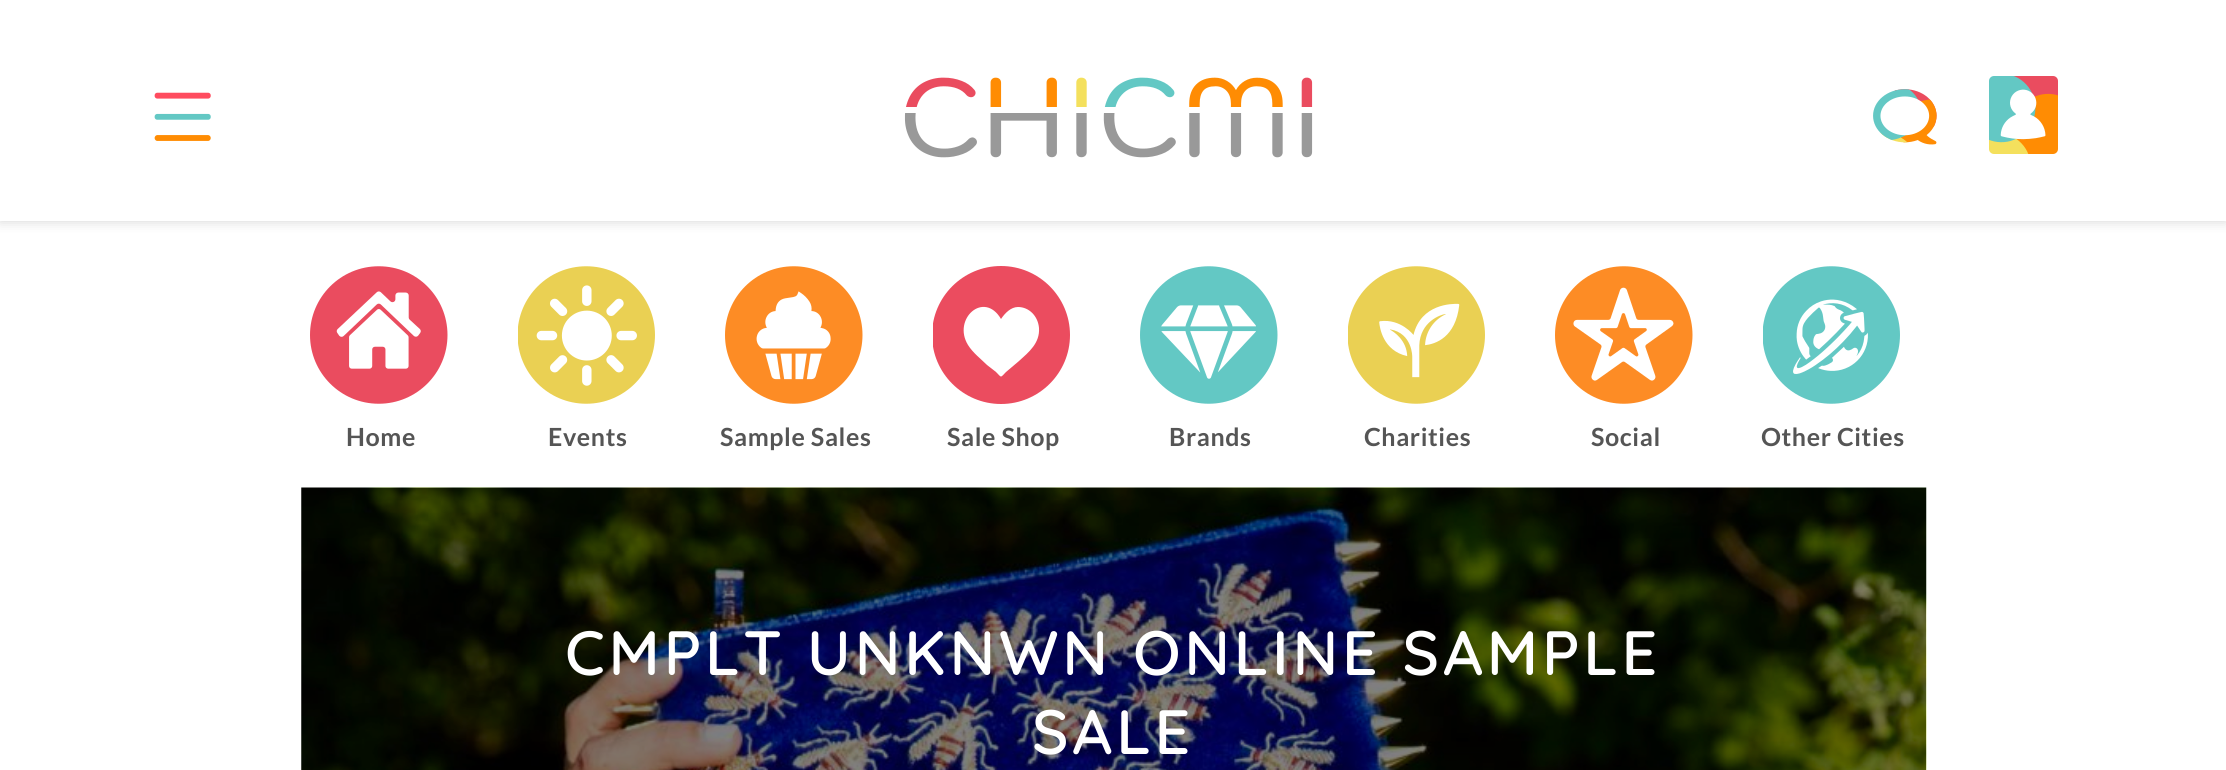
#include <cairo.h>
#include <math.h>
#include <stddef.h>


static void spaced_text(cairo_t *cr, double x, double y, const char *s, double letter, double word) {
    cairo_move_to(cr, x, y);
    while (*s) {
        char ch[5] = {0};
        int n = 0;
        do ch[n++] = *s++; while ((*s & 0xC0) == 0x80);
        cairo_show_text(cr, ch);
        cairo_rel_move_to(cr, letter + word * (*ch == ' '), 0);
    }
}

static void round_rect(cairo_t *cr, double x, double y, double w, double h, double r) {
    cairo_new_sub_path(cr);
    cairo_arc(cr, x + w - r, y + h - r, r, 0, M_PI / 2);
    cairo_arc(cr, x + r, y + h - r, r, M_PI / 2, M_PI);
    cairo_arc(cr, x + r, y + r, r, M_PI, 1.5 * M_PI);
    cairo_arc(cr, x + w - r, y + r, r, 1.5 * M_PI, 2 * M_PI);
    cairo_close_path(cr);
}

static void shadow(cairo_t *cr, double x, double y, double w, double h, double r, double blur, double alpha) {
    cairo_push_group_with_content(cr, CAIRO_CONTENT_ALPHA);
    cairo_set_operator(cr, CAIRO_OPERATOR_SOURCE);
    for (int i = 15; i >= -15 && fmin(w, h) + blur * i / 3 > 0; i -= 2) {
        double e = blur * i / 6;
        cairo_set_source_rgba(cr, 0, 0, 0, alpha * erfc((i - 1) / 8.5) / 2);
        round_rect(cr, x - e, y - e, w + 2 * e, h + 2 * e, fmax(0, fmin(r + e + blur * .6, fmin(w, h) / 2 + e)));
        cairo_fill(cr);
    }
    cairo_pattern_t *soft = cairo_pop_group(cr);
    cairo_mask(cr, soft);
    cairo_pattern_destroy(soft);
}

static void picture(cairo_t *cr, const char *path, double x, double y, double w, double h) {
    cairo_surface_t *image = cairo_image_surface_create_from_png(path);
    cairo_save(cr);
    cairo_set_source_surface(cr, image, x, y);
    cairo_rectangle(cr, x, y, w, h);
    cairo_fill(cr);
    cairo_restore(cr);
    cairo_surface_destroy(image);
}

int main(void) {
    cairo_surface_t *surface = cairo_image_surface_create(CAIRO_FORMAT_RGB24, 2226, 770);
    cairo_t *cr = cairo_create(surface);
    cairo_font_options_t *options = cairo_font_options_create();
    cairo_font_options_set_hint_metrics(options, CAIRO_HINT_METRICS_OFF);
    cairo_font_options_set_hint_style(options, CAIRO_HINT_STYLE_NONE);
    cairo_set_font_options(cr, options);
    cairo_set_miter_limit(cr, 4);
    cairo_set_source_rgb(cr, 1, 1, 1);
    cairo_paint(cr);
    cairo_save(cr);
    cairo_rectangle(cr, 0, 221, 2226, 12);
    cairo_clip(cr);
    cairo_set_source_rgb(cr, 0.831, 0.831, 0.831);
    shadow(cr, 0, 0, 2226, 221, 0, 6, 1);
    cairo_restore(cr);
    picture(cr, "img1.png", 154, 92, 57, 49);
    picture(cr, "img2.png", 904, 77, 409, 81);
    picture(cr, "img3.png", 1873, 89, 64, 56);
    picture(cr, "img4.png", 1989, 76, 69, 78);
    picture(cr, "img5.png", 310, 266, 138, 138);
    cairo_select_font_face(cr, "Lato", CAIRO_FONT_SLANT_NORMAL, CAIRO_FONT_WEIGHT_BOLD);
    cairo_set_font_size(cr, 25);
    cairo_set_source_rgb(cr, 0.333, 0.333, 0.333);
    spaced_text(cr, 346, 446, "Home", 0.6, 0);
    picture(cr, "img6.png", 518, 266, 137, 138);
    spaced_text(cr, 548, 446, "Events", 0.6, 0);
    picture(cr, "img7.png", 725, 266, 138, 138);
    spaced_text(cr, 720, 446, "Sample Sales", 0.6, 0);
    cairo_save(cr);
    cairo_rectangle(cr, 933, 266, 137, 138);
    cairo_clip(cr);
    cairo_set_source_rgb(cr, 0.918, 0.298, 0.373);
    cairo_new_path(cr);
    cairo_move_to(cr, 1070, 335);
    cairo_curve_to(cr, 1070, 373, 1039, 404, 1001, 404);
    cairo_curve_to(cr, 963, 404, 932, 373, 932, 335);
    cairo_curve_to(cr, 932, 297, 963, 266, 1001, 266);
    cairo_curve_to(cr, 1039, 266, 1070, 297, 1070, 335);
    cairo_fill(cr);
    cairo_restore(cr);
    cairo_set_source_rgb(cr, 1, 1, 1);
    cairo_new_path(cr);
    cairo_move_to(cr, 1039, 328);
    cairo_curve_to(cr, 1038, 316, 1029, 307, 1018, 307);
    cairo_curve_to(cr, 1011, 307, 1005, 313, 1001, 319);
    cairo_curve_to(cr, 984, 290, 952, 319, 968, 345);
    cairo_curve_to(cr, 973, 353, 981, 359, 987, 365);
    cairo_line_to(cr, 996, 372);
    cairo_curve_to(cr, 1002, 378, 1000, 378, 1006, 372);
    cairo_line_to(cr, 1019, 361);
    cairo_curve_to(cr, 1029, 352, 1040, 343, 1039, 328);
    cairo_fill(cr);
    cairo_set_source_rgb(cr, 0.333, 0.333, 0.333);
    spaced_text(cr, 947, 446, "Sale Shop", 0.6, 0);
    picture(cr, "img8.png", 1140, 266, 138, 138);
    spaced_text(cr, 1169, 446, "Brands", 0.6, 0);
    picture(cr, "img9.png", 1348, 266, 137, 138);
    spaced_text(cr, 1364, 446, "Charities", 0.6, 0);
    picture(cr, "img10.png", 1555, 266, 138, 138);
    spaced_text(cr, 1591, 446, "Social", 0.6, 0);
    picture(cr, "img11.png", 1763, 266, 137, 138);
    spaced_text(cr, 1761, 446, "Other Cities", 0.6, 0);
    picture(cr, "img12.png", 301, 487, 1626, 283);
    cairo_select_font_face(cr, "Quicksand SemiBold", CAIRO_FONT_SLANT_NORMAL, CAIRO_FONT_WEIGHT_NORMAL);
    cairo_set_font_size(cr, 62.5);
    cairo_set_source_rgb(cr, 1, 1, 1);
    spaced_text(cr, 565, 675, "CMPLT UNKNWN ONLINE SAMPLE", 3.75, 0);
    spaced_text(cr, 1032, 754, "SALE", 3.75, 0);
    cairo_surface_write_to_png(surface, "page.png");
    cairo_font_options_destroy(options);
    cairo_destroy(cr);
    cairo_surface_destroy(surface);
    return 0;
}
